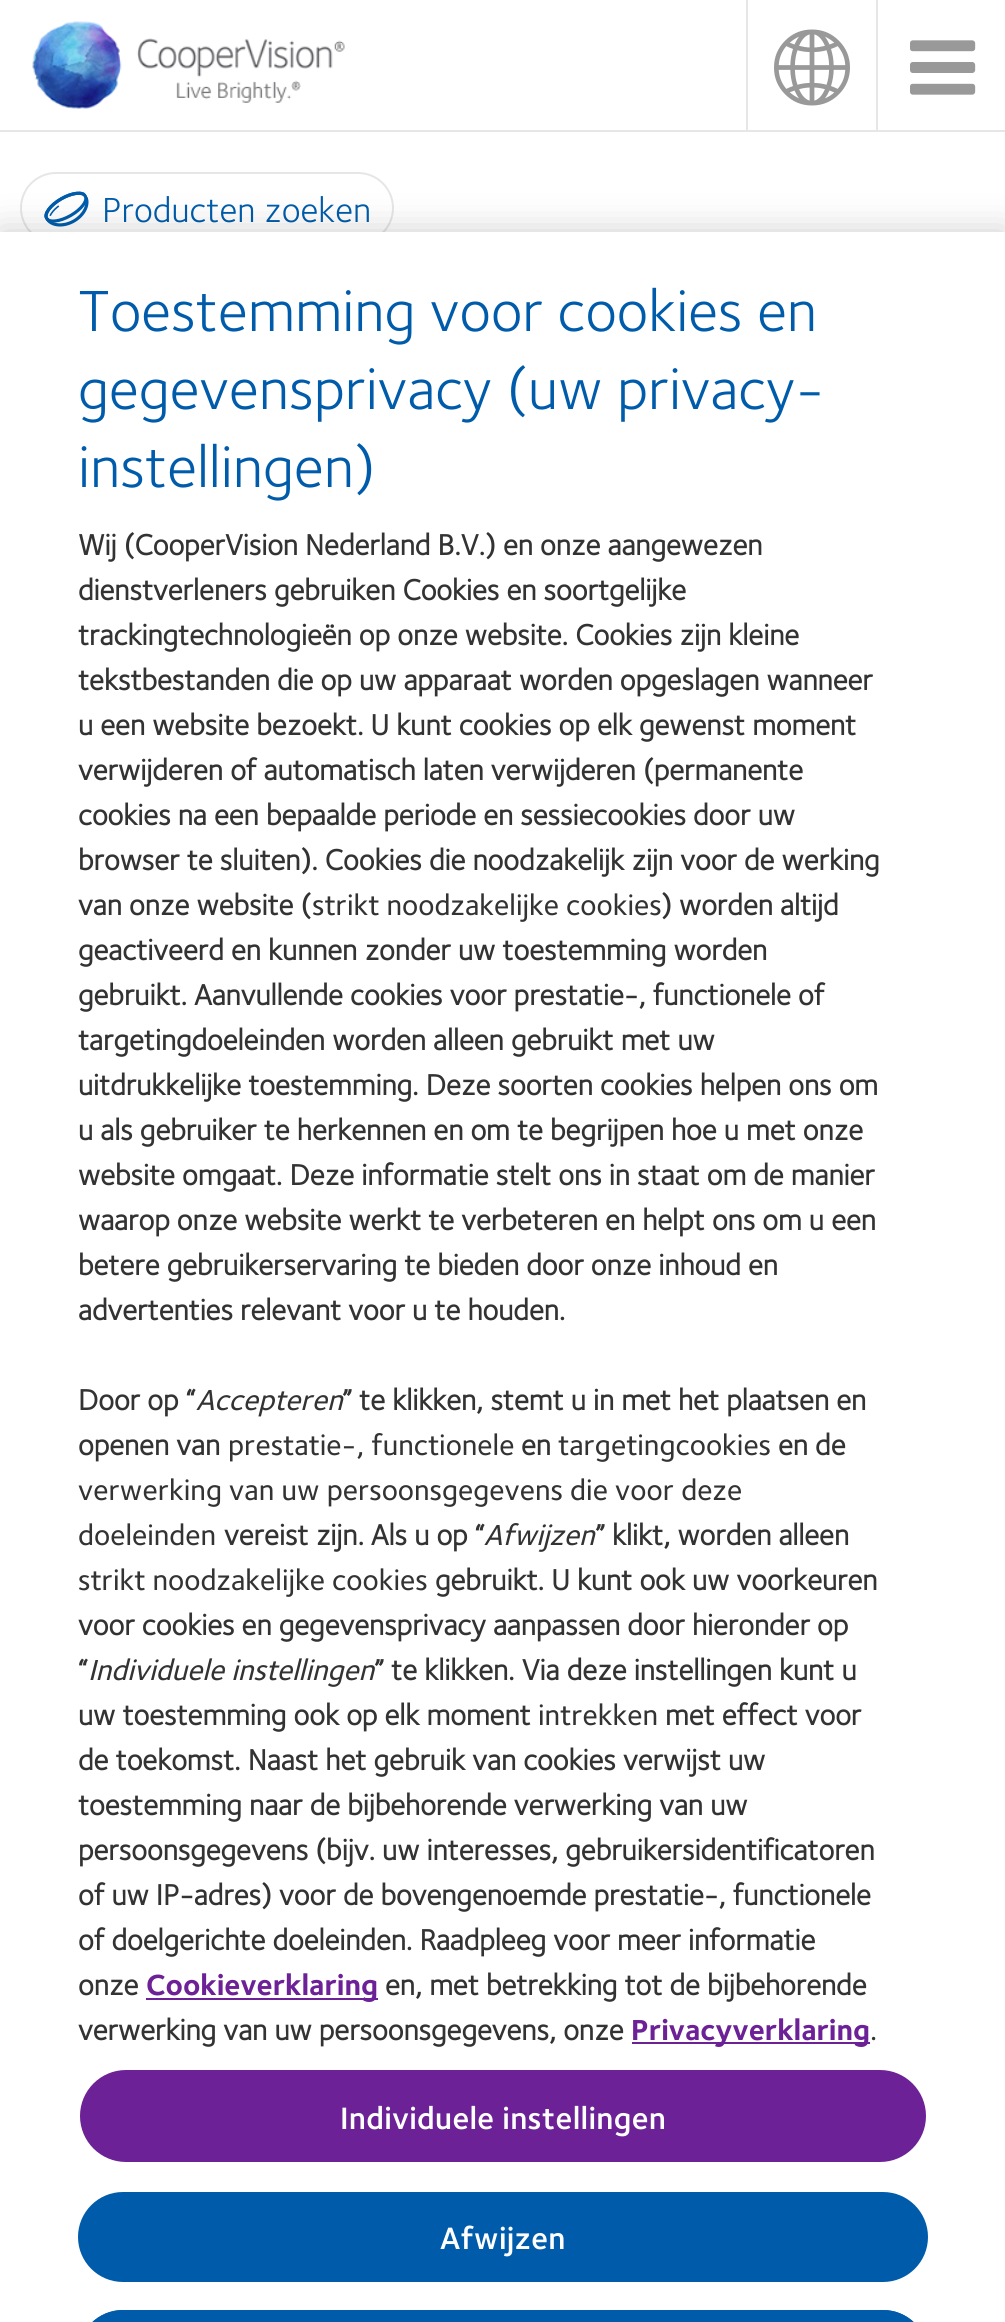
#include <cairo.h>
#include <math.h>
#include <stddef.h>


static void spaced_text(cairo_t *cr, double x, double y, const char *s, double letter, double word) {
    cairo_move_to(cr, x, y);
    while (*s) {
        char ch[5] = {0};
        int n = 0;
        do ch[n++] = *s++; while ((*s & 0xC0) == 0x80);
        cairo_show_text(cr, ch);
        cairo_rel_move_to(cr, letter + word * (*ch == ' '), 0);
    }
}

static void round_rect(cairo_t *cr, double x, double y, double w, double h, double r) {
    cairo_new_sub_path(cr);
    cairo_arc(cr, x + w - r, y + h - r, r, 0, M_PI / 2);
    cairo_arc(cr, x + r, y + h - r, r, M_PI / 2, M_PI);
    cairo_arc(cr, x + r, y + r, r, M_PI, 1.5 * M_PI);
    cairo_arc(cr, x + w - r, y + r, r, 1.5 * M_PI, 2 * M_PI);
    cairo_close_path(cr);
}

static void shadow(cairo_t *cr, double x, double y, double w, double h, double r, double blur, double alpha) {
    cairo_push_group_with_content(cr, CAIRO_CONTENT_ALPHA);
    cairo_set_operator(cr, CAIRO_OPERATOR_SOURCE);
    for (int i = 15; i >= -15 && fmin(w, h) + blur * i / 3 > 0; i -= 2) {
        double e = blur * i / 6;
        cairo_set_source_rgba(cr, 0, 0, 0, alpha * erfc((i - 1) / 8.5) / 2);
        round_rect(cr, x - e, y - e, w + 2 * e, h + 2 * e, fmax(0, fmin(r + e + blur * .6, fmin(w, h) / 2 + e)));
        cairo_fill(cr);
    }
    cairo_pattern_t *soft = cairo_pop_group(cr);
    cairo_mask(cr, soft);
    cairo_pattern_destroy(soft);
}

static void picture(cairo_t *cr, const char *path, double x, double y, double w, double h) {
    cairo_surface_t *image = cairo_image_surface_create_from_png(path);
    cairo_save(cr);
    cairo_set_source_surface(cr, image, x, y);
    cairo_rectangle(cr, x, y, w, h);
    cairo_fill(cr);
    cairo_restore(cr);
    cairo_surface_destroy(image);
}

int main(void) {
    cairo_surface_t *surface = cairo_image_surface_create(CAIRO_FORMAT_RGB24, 1005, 2322);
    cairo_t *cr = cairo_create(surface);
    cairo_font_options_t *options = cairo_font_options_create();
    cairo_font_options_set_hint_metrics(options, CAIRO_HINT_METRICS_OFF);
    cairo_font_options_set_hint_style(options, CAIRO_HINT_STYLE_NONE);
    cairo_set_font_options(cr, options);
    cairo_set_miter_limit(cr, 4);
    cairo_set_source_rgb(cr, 1, 1, 1);
    cairo_paint(cr);
    cairo_set_source_rgb(cr, 0.902, 0.902, 0.902);
    cairo_rectangle(cr, 0, 130, 1005, 2);
    cairo_fill(cr);
    picture(cr, "img1.png", 32, 21, 313, 88);
    cairo_rectangle(cr, 746, 0, 2, 130);
    cairo_fill(cr);
    picture(cr, "img2.png", 774, 29, 76, 77);
    cairo_rectangle(cr, 876, 0, 2, 130);
    cairo_fill(cr);
    picture(cr, "img3.png", 910, 40, 66, 55);
    round_rect(cr, 21, 173, 372, 70, 35);
    cairo_stroke(cr);
    picture(cr, "img4.png", 44, 191, 45, 36);
    cairo_select_font_face(cr, "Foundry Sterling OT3", CAIRO_FONT_SLANT_NORMAL, CAIRO_FONT_WEIGHT_NORMAL);
    cairo_set_font_size(cr, 36);
    cairo_set_source_rgb(cr, 0, 0.361, 0.671);
    cairo_move_to(cr, 102, 222);
    cairo_show_text(cr, "Producten zoeken");
    cairo_set_source_rgb(cr, 0, 0, 0);
    shadow(cr, 0, 232, 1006, 2090, 0, 18, 0.2);
    cairo_set_source_rgb(cr, 1, 1, 1);
    cairo_rectangle(cr, 0, 232, 1005, 2090);
    cairo_fill(cr);
    cairo_set_font_size(cr, 60);
    cairo_set_source_rgb(cr, 0, 0.361, 0.671);
    cairo_move_to(cr, 78, 331);
    cairo_show_text(cr, "Toestemming voor cookies en");
    cairo_move_to(cr, 78, 409);
    cairo_show_text(cr, "gegevensprivacy (uw privacy-");
    cairo_move_to(cr, 78, 487);
    cairo_show_text(cr, "instellingen)");
    cairo_select_font_face(cr, "Foundry Sterling OT3", CAIRO_FONT_SLANT_NORMAL, CAIRO_FONT_WEIGHT_BOLD);
    cairo_set_font_size(cr, 30);
    cairo_set_source_rgb(cr, 0.2, 0.2, 0.2);
    cairo_move_to(cr, 78, 555);
    cairo_show_text(cr, "Wij (CooperVision Nederland B.V.) en onze aangewezen");
    cairo_move_to(cr, 78, 600);
    cairo_show_text(cr, "dienstverleners gebruiken Cookies en soortgelijke");
    cairo_move_to(cr, 78, 645);
    cairo_show_text(cr, "trackingtechnologieën op onze website. Cookies zijn kleine");
    cairo_move_to(cr, 78, 690);
    cairo_show_text(cr, "tekstbestanden die op uw apparaat worden opgeslagen wanneer");
    cairo_move_to(cr, 78, 735);
    cairo_show_text(cr, "u een website bezoekt. U kunt cookies op elk gewenst moment");
    cairo_move_to(cr, 78, 780);
    cairo_show_text(cr, "verwijderen of automatisch laten verwijderen (permanente");
    cairo_move_to(cr, 78, 825);
    cairo_show_text(cr, "cookies na een bepaalde periode en sessiecookies door uw");
    cairo_move_to(cr, 78, 870);
    cairo_show_text(cr, "browser te sluiten). Cookies die noodzakelijk zijn voor de werking");
    cairo_move_to(cr, 78, 915);
    cairo_show_text(cr, "van onze website (");
    cairo_select_font_face(cr, "Foundry Sterling OT3 Medium", CAIRO_FONT_SLANT_NORMAL, CAIRO_FONT_WEIGHT_NORMAL);
    cairo_move_to(cr, 312, 915);
    cairo_show_text(cr, "strikt noodzakelijke cookies");
    cairo_select_font_face(cr, "Foundry Sterling OT3", CAIRO_FONT_SLANT_NORMAL, CAIRO_FONT_WEIGHT_BOLD);
    cairo_move_to(cr, 661, 915);
    cairo_show_text(cr, ") worden altijd");
    cairo_move_to(cr, 78, 960);
    cairo_show_text(cr, "geactiveerd en kunnen zonder uw toestemming worden");
    cairo_move_to(cr, 78, 1005);
    cairo_show_text(cr, "gebruikt. Aanvullende cookies voor prestatie-, functionele of");
    cairo_move_to(cr, 78, 1050);
    cairo_show_text(cr, "targetingdoeleinden worden alleen gebruikt met uw");
    cairo_move_to(cr, 78, 1095);
    cairo_show_text(cr, "uitdrukkelijke toestemming. Deze soorten cookies helpen ons om");
    cairo_move_to(cr, 78, 1140);
    cairo_show_text(cr, "u als gebruiker te herkennen en om te begrijpen hoe u met onze");
    cairo_move_to(cr, 78, 1185);
    cairo_show_text(cr, "website omgaat. Deze informatie stelt ons in staat om de manier");
    cairo_move_to(cr, 78, 1230);
    cairo_show_text(cr, "waarop onze website werkt te verbeteren en helpt ons om u een");
    cairo_move_to(cr, 78, 1275);
    cairo_show_text(cr, "betere gebruikerservaring te bieden door onze inhoud en");
    cairo_move_to(cr, 78, 1320);
    cairo_show_text(cr, "advertenties relevant voor u te houden.");
    cairo_move_to(cr, 78, 1410);
    cairo_show_text(cr, "Door op “");
    cairo_select_font_face(cr, "Foundry Sterling OT3 Medium", CAIRO_FONT_SLANT_ITALIC, CAIRO_FONT_WEIGHT_NORMAL);
    cairo_move_to(cr, 196, 1410);
    cairo_show_text(cr, "Accepteren");
    cairo_select_font_face(cr, "Foundry Sterling OT3", CAIRO_FONT_SLANT_NORMAL, CAIRO_FONT_WEIGHT_BOLD);
    cairo_move_to(cr, 342, 1410);
    cairo_show_text(cr, "” te klikken, stemt u in met het plaatsen en");
    cairo_move_to(cr, 78, 1455);
    cairo_show_text(cr, "openen van");
    cairo_select_font_face(cr, "Foundry Sterling OT3 Medium", CAIRO_FONT_SLANT_NORMAL, CAIRO_FONT_WEIGHT_NORMAL);
    cairo_move_to(cr, 228, 1455);
    cairo_show_text(cr, "prestatie-, functionele");
    cairo_select_font_face(cr, "Foundry Sterling OT3", CAIRO_FONT_SLANT_NORMAL, CAIRO_FONT_WEIGHT_BOLD);
    cairo_move_to(cr, 521, 1455);
    cairo_show_text(cr, "en");
    cairo_select_font_face(cr, "Foundry Sterling OT3 Medium", CAIRO_FONT_SLANT_NORMAL, CAIRO_FONT_WEIGHT_NORMAL);
    cairo_move_to(cr, 558, 1455);
    cairo_show_text(cr, "targetingcookies");
    cairo_select_font_face(cr, "Foundry Sterling OT3", CAIRO_FONT_SLANT_NORMAL, CAIRO_FONT_WEIGHT_BOLD);
    cairo_move_to(cr, 778, 1455);
    cairo_show_text(cr, "en de");
    cairo_select_font_face(cr, "Foundry Sterling OT3 Medium", CAIRO_FONT_SLANT_NORMAL, CAIRO_FONT_WEIGHT_NORMAL);
    cairo_move_to(cr, 78, 1500);
    cairo_show_text(cr, "verwerking van uw persoonsgegevens die voor deze");
    cairo_move_to(cr, 78, 1545);
    cairo_show_text(cr, "doeleinden");
    cairo_select_font_face(cr, "Foundry Sterling OT3", CAIRO_FONT_SLANT_NORMAL, CAIRO_FONT_WEIGHT_BOLD);
    cairo_move_to(cr, 224, 1545);
    cairo_show_text(cr, "vereist zijn. Als u op “");
    cairo_select_font_face(cr, "Foundry Sterling OT3 Medium", CAIRO_FONT_SLANT_ITALIC, CAIRO_FONT_WEIGHT_NORMAL);
    cairo_move_to(cr, 484, 1545);
    cairo_show_text(cr, "Afwijzen");
    cairo_select_font_face(cr, "Foundry Sterling OT3", CAIRO_FONT_SLANT_NORMAL, CAIRO_FONT_WEIGHT_BOLD);
    cairo_move_to(cr, 595, 1545);
    cairo_show_text(cr, "” klikt, worden alleen");
    cairo_select_font_face(cr, "Foundry Sterling OT3 Medium", CAIRO_FONT_SLANT_NORMAL, CAIRO_FONT_WEIGHT_NORMAL);
    cairo_move_to(cr, 78, 1590);
    cairo_show_text(cr, "strikt noodzakelijke cookies");
    cairo_select_font_face(cr, "Foundry Sterling OT3", CAIRO_FONT_SLANT_NORMAL, CAIRO_FONT_WEIGHT_BOLD);
    cairo_move_to(cr, 435, 1590);
    cairo_show_text(cr, "gebruikt. U kunt ook uw voorkeuren");
    cairo_move_to(cr, 78, 1635);
    cairo_show_text(cr, "voor cookies en gegevensprivacy aanpassen door hieronder op");
    cairo_move_to(cr, 78, 1680);
    cairo_show_text(cr, "“");
    cairo_select_font_face(cr, "Foundry Sterling OT3 Medium", CAIRO_FONT_SLANT_ITALIC, CAIRO_FONT_WEIGHT_NORMAL);
    cairo_move_to(cr, 88, 1680);
    cairo_show_text(cr, "Individuele instellingen");
    cairo_select_font_face(cr, "Foundry Sterling OT3", CAIRO_FONT_SLANT_NORMAL, CAIRO_FONT_WEIGHT_BOLD);
    cairo_move_to(cr, 374, 1680);
    cairo_show_text(cr, "” te klikken. Via deze instellingen kunt u");
    cairo_move_to(cr, 78, 1725);
    cairo_show_text(cr, "uw toestemming ook op elk moment");
    cairo_select_font_face(cr, "Foundry Sterling OT3 Medium", CAIRO_FONT_SLANT_NORMAL, CAIRO_FONT_WEIGHT_NORMAL);
    cairo_move_to(cr, 538, 1725);
    cairo_show_text(cr, "intrekken");
    cairo_select_font_face(cr, "Foundry Sterling OT3", CAIRO_FONT_SLANT_NORMAL, CAIRO_FONT_WEIGHT_BOLD);
    cairo_move_to(cr, 665, 1725);
    cairo_show_text(cr, "met effect voor");
    cairo_move_to(cr, 78, 1770);
    cairo_show_text(cr, "de toekomst. Naast het gebruik van cookies verwijst uw");
    cairo_move_to(cr, 78, 1815);
    cairo_show_text(cr, "toestemming naar de bijbehorende verwerking van uw");
    cairo_move_to(cr, 78, 1860);
    cairo_show_text(cr, "persoonsgegevens (bijv. uw interesses, gebruikersidentificatoren");
    cairo_move_to(cr, 78, 1905);
    cairo_show_text(cr, "of uw IP-adres) voor de bovengenoemde prestatie-, functionele");
    cairo_move_to(cr, 78, 1950);
    cairo_show_text(cr, "of doelgerichte doeleinden. Raadpleeg voor meer informatie");
    cairo_move_to(cr, 78, 1995);
    cairo_show_text(cr, "onze");
    cairo_set_source_rgb(cr, 0.424, 0.129, 0.588);
    cairo_rectangle(cr, 146, 1998, 232, 2);
    cairo_fill(cr);
    cairo_select_font_face(cr, "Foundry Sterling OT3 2", CAIRO_FONT_SLANT_NORMAL, CAIRO_FONT_WEIGHT_BOLD);
    cairo_move_to(cr, 146, 1995);
    cairo_show_text(cr, "Cookieverklaring");
    cairo_select_font_face(cr, "Foundry Sterling OT3", CAIRO_FONT_SLANT_NORMAL, CAIRO_FONT_WEIGHT_BOLD);
    cairo_set_source_rgb(cr, 0.2, 0.2, 0.2);
    cairo_move_to(cr, 385, 1995);
    cairo_show_text(cr, "en, met betrekking tot de bijbehorende");
    cairo_move_to(cr, 78, 2040);
    cairo_show_text(cr, "verwerking van uw persoonsgegevens, onze");
    cairo_set_source_rgb(cr, 0.424, 0.129, 0.588);
    cairo_rectangle(cr, 632, 2042, 238, 2);
    cairo_fill(cr);
    cairo_select_font_face(cr, "Foundry Sterling OT3 2", CAIRO_FONT_SLANT_NORMAL, CAIRO_FONT_WEIGHT_BOLD);
    cairo_move_to(cr, 631, 2040);
    cairo_show_text(cr, "Privacyverklaring");
    cairo_select_font_face(cr, "Foundry Sterling OT3 Medium", CAIRO_FONT_SLANT_NORMAL, CAIRO_FONT_WEIGHT_NORMAL);
    cairo_set_source_rgb(cr, 0.2, 0.2, 0.2);
    cairo_move_to(cr, 870, 2040);
    cairo_show_text(cr, ".");
    cairo_set_source_rgb(cr, 0.424, 0.129, 0.588);
    round_rect(cr, 79, 2069, 848, 94, 47);
    cairo_fill_preserve(cr);
    cairo_set_source_rgb(cr, 1, 1, 1);
    cairo_stroke(cr);
    cairo_select_font_face(cr, "Foundry Sterling OT3 SemiBold", CAIRO_FONT_SLANT_NORMAL, CAIRO_FONT_WEIGHT_NORMAL);
    cairo_set_font_size(cr, 32);
    spaced_text(cr, 340, 2129, "Individuele instellingen", 0.3, 0);
    cairo_set_source_rgb(cr, 0, 0.361, 0.671);
    round_rect(cr, 79, 2193, 848, 88, 44);
    cairo_fill_preserve(cr);
    cairo_stroke(cr);
    cairo_set_source_rgb(cr, 1, 1, 1);
    spaced_text(cr, 440, 2249, "Afwijzen", 0.3, 0);
    cairo_set_source_rgb(cr, 0, 0.361, 0.671);
    cairo_new_path(cr);
    cairo_move_to(cr, 123, 2310);
    cairo_line_to(cr, 883, 2310);
    cairo_curve_to(cr, 908, 2310, 928, 2330, 928, 2355);
    cairo_line_to(cr, 928, 2322);
    cairo_line_to(cr, 78, 2322);
    cairo_line_to(cr, 78, 2355);
    cairo_curve_to(cr, 78, 2330, 98, 2310, 123, 2310);
    cairo_close_path(cr);
    cairo_fill(cr);
    round_rect(cr, 79, 2311, 848, 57, 44);
    cairo_stroke(cr);
    cairo_surface_write_to_png(surface, "page.png");
    cairo_font_options_destroy(options);
    cairo_destroy(cr);
    cairo_surface_destroy(surface);
    return 0;
}
